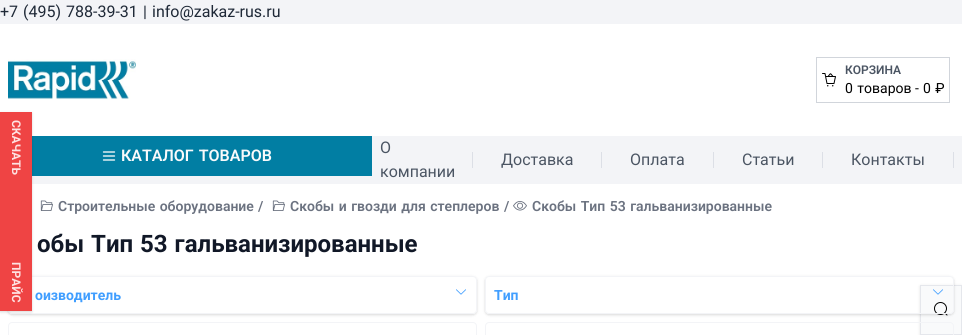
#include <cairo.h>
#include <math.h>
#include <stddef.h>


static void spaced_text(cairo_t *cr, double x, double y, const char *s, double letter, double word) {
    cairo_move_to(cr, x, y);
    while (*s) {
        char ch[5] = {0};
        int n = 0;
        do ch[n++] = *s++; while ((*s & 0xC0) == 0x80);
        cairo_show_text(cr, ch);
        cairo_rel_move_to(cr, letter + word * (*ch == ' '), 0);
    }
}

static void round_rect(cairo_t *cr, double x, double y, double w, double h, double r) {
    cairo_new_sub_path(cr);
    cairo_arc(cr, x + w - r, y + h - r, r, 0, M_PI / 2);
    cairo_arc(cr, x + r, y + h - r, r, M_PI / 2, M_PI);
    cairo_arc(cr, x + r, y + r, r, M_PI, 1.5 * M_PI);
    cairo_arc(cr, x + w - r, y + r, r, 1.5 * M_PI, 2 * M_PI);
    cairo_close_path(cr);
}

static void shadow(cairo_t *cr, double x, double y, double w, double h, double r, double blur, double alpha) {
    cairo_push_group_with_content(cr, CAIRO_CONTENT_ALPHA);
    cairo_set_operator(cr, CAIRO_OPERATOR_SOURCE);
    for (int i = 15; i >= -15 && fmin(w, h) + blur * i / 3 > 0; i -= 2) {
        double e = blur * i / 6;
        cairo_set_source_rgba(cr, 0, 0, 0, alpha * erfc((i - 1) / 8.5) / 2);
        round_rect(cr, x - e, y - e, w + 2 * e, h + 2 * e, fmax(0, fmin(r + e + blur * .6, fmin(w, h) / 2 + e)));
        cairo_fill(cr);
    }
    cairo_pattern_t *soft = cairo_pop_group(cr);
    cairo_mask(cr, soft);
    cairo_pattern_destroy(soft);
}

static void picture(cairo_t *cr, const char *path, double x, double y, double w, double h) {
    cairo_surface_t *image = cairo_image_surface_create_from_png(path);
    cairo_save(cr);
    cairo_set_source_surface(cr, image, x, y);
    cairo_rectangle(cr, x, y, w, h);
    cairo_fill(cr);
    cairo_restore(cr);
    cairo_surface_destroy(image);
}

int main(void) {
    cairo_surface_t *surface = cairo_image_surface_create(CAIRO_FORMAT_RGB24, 962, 335);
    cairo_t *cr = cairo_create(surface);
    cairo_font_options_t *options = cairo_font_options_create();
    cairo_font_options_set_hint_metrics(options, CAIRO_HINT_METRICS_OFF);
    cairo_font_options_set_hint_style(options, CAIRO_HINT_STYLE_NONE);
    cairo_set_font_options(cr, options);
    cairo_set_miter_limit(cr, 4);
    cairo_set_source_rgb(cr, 0.953, 0.957, 0.965);
    cairo_paint(cr);
    cairo_select_font_face(cr, "Roboto", CAIRO_FONT_SLANT_NORMAL, CAIRO_FONT_WEIGHT_NORMAL);
    cairo_set_font_size(cr, 16);
    cairo_set_source_rgb(cr, 0.122, 0.161, 0.216);
    spaced_text(cr, 0, 17, "+7 (495) 788-39-31", 0, 1);
    cairo_move_to(cr, 143, 17);
    cairo_show_text(cr, "|");
    cairo_move_to(cr, 152, 17);
    cairo_show_text(cr, "info@zakaz-rus.ru");
    cairo_set_source_rgb(cr, 1, 1, 1);
    cairo_rectangle(cr, 0, 24, 962, 112);
    cairo_fill(cr);
    picture(cr, "img1.png", 8, 59, 128, 41);
    cairo_rectangle(cr, 816.5, 57.5, 133, 45);
    cairo_set_source_rgb(cr, 0.82, 0.835, 0.859);
    cairo_set_line_width(cr, 1);
    cairo_stroke(cr);
    picture(cr, "img2.png", 822, 73, 14, 14);
    cairo_select_font_face(cr, "Roboto SemiBold", CAIRO_FONT_SLANT_NORMAL, CAIRO_FONT_WEIGHT_NORMAL);
    cairo_set_font_size(cr, 12);
    cairo_set_source_rgb(cr, 0.294, 0.333, 0.388);
    cairo_move_to(cr, 845, 74);
    cairo_show_text(cr, "КОРЗИНА");
    cairo_select_font_face(cr, "Roboto", CAIRO_FONT_SLANT_NORMAL, CAIRO_FONT_WEIGHT_NORMAL);
    cairo_set_font_size(cr, 14);
    cairo_set_source_rgb(cr, 0, 0, 0);
    spaced_text(cr, 845, 93, "0 товаров", 0, 1);
    cairo_move_to(cr, 915, 93);
    cairo_show_text(cr, "-");
    spaced_text(cr, 923, 93, "0 ₽", 0, 1);
    cairo_set_source_rgb(cr, 1, 1, 1);
    cairo_rectangle(cr, 0, 184, 962, 151);
    cairo_fill(cr);
    cairo_set_source_rgb(cr, 0, 0, 0);
    shadow(cr, 920, 286, 42, 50, 0, 1.5, 0.1);
    cairo_set_source_rgb(cr, 0.976, 0.98, 0.984);
    cairo_rectangle(cr, 920.5, 285.5, 41, 49);
    cairo_fill_preserve(cr);
    cairo_set_source_rgb(cr, 0.898, 0.906, 0.922);
    cairo_stroke(cr);
    picture(cr, "img3.png", 934, 302, 14, 14);
    cairo_set_source_rgb(cr, 0.004, 0.494, 0.639);
    cairo_rectangle(cr, 32, 136, 340, 40);
    cairo_fill(cr);
    cairo_new_path(cr);
    cairo_move_to(cr, 103.5, 152);
    cairo_line_to(cr, 114.5, 152);
    cairo_move_to(cr, 103.5, 156);
    cairo_line_to(cr, 114.5, 156);
    cairo_move_to(cr, 103.5, 160);
    cairo_line_to(cr, 114.5, 160);
    cairo_set_source_rgb(cr, 0.976, 0.98, 0.984);
    cairo_set_line_width(cr, 1.3);
    cairo_set_line_cap(cr, CAIRO_LINE_CAP_ROUND);
    cairo_set_line_join(cr, CAIRO_LINE_JOIN_ROUND);
    cairo_stroke(cr);
    cairo_select_font_face(cr, "Roboto SemiBold", CAIRO_FONT_SLANT_NORMAL, CAIRO_FONT_WEIGHT_NORMAL);
    cairo_set_font_size(cr, 16);
    spaced_text(cr, 121, 161, "КАТАЛОГ ТОВАРОВ", 0, 1);
    cairo_select_font_face(cr, "Roboto", CAIRO_FONT_SLANT_NORMAL, CAIRO_FONT_WEIGHT_NORMAL);
    cairo_set_source_rgb(cr, 0.294, 0.333, 0.388);
    cairo_move_to(cr, 380, 153);
    cairo_show_text(cr, "О");
    cairo_move_to(cr, 380, 177);
    cairo_show_text(cr, "компании");
    cairo_set_source_rgb(cr, 0.863, 0.875, 0.902);
    cairo_rectangle(cr, 472, 152, 1, 16);
    cairo_fill(cr);
    cairo_set_source_rgb(cr, 0.294, 0.333, 0.388);
    cairo_move_to(cr, 501, 165);
    cairo_show_text(cr, "Доставка");
    cairo_set_source_rgb(cr, 0.863, 0.875, 0.902);
    cairo_rectangle(cr, 601, 152, 1, 16);
    cairo_fill(cr);
    cairo_set_source_rgb(cr, 0.294, 0.333, 0.388);
    cairo_move_to(cr, 630, 165);
    cairo_show_text(cr, "Оплата");
    cairo_set_source_rgb(cr, 0.863, 0.875, 0.902);
    cairo_rectangle(cr, 713, 152, 1, 16);
    cairo_fill(cr);
    cairo_set_source_rgb(cr, 0.294, 0.333, 0.388);
    cairo_move_to(cr, 742, 165);
    cairo_show_text(cr, "Статьи");
    cairo_set_source_rgb(cr, 0.863, 0.875, 0.902);
    cairo_rectangle(cr, 822, 152, 1, 16);
    cairo_fill(cr);
    cairo_set_source_rgb(cr, 0.294, 0.333, 0.388);
    cairo_move_to(cr, 851, 165);
    cairo_show_text(cr, "Контакты");
    cairo_set_source_rgb(cr, 0.863, 0.875, 0.902);
    cairo_rectangle(cr, 953, 152, 1, 16);
    cairo_fill(cr);
    cairo_save(cr);
    cairo_set_fill_rule(cr, CAIRO_FILL_RULE_EVEN_ODD);
    cairo_new_path(cr);
    cairo_move_to(cr, 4, 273);
    cairo_line_to(cr, 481, 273);
    cairo_line_to(cr, 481, 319);
    cairo_line_to(cr, 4, 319);
    cairo_close_path(cr);
    cairo_move_to(cr, 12, 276);
    cairo_line_to(cr, 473, 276);
    cairo_curve_to(cr, 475, 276, 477, 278, 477, 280);
    cairo_line_to(cr, 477, 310);
    cairo_curve_to(cr, 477, 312, 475, 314, 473, 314);
    cairo_line_to(cr, 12, 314);
    cairo_curve_to(cr, 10, 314, 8, 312, 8, 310);
    cairo_line_to(cr, 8, 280);
    cairo_curve_to(cr, 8, 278, 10, 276, 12, 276);
    cairo_close_path(cr);
    cairo_clip(cr);
    cairo_set_source_rgb(cr, 0, 0, 0);
    shadow(cr, 8, 277, 469, 38, 4, 1, 0.06);
    cairo_restore(cr);
    cairo_save(cr);
    cairo_set_fill_rule(cr, CAIRO_FILL_RULE_EVEN_ODD);
    cairo_new_path(cr);
    cairo_move_to(cr, 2, 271);
    cairo_line_to(cr, 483, 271);
    cairo_line_to(cr, 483, 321);
    cairo_line_to(cr, 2, 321);
    cairo_close_path(cr);
    cairo_move_to(cr, 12, 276);
    cairo_line_to(cr, 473, 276);
    cairo_curve_to(cr, 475, 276, 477, 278, 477, 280);
    cairo_line_to(cr, 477, 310);
    cairo_curve_to(cr, 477, 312, 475, 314, 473, 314);
    cairo_line_to(cr, 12, 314);
    cairo_curve_to(cr, 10, 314, 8, 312, 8, 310);
    cairo_line_to(cr, 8, 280);
    cairo_curve_to(cr, 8, 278, 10, 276, 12, 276);
    cairo_close_path(cr);
    cairo_clip(cr);
    cairo_set_source_rgb(cr, 0, 0, 0);
    shadow(cr, 8, 277, 469, 38, 4, 1.5, 0.1);
    cairo_restore(cr);
    round_rect(cr, 8.5, 276.5, 468, 37, 3.5);
    cairo_set_source_rgb(cr, 0.953, 0.957, 0.965);
    cairo_set_line_width(cr, 1);
    cairo_set_line_cap(cr, CAIRO_LINE_CAP_BUTT);
    cairo_set_line_join(cr, CAIRO_LINE_JOIN_MITER);
    cairo_stroke(cr);
    cairo_set_source_rgb(cr, 0, 0, 0);
    shadow(cr, 0, 113, 32, 199, 0, 1, 0.06);
    shadow(cr, 0, 113, 32, 199, 0, 1.5, 0.1);
    cairo_set_source_rgb(cr, 0.937, 0.267, 0.267);
    cairo_rectangle(cr, 0, 112, 32, 199);
    cairo_fill(cr);
    cairo_select_font_face(cr, "Roboto", CAIRO_FONT_SLANT_NORMAL, CAIRO_FONT_WEIGHT_BOLD);
    cairo_set_font_size(cr, 12);
    cairo_set_source_rgb(cr, 0.996, 0.886, 0.886);
    cairo_save(cr);
    cairo_translate(cr, 12, 120);
    cairo_rotate(cr, 90 * M_PI / 180);
    spaced_text(cr, 0, 0, "СКАЧАТЬ ПРАЙС", 0, 84);
    cairo_restore(cr);
    picture(cr, "img4.png", 40, 200, 13, 11);
    cairo_select_font_face(cr, "Roboto SemiBold", CAIRO_FONT_SLANT_NORMAL, CAIRO_FONT_WEIGHT_NORMAL);
    cairo_set_font_size(cr, 14);
    cairo_set_source_rgb(cr, 0.42, 0.447, 0.502);
    spaced_text(cr, 58, 211, "Строительные оборудование", 0, 1);
    cairo_move_to(cr, 258, 211);
    cairo_show_text(cr, "/");
    picture(cr, "img4.png", 272, 200, 13, 11);
    spaced_text(cr, 290, 211, "Скобы и гвозди для степлеров", 0, 1);
    cairo_move_to(cr, 504, 211);
    cairo_show_text(cr, "/");
    picture(cr, "img5.png", 513, 201, 14, 10);
    spaced_text(cr, 532, 211, "Скобы Тип 53 гальванизированные", 0, 1);
    cairo_select_font_face(cr, "Roboto", CAIRO_FONT_SLANT_NORMAL, CAIRO_FONT_WEIGHT_BOLD);
    cairo_set_font_size(cr, 24);
    cairo_set_source_rgb(cr, 0.067, 0.094, 0.153);
    spaced_text(cr, 37, 252, "обы Тип 53 гальванизированные", 0, 1);
    cairo_set_font_size(cr, 14);
    cairo_set_source_rgb(cr, 0.251, 0.62, 1);
    cairo_move_to(cr, 35, 300);
    cairo_show_text(cr, "оизводитель");
    picture(cr, "img6.png", 456, 289, 10, 6);
    cairo_save(cr);
    cairo_set_fill_rule(cr, CAIRO_FILL_RULE_EVEN_ODD);
    cairo_new_path(cr);
    cairo_move_to(cr, 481, 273);
    cairo_line_to(cr, 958, 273);
    cairo_line_to(cr, 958, 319);
    cairo_line_to(cr, 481, 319);
    cairo_close_path(cr);
    cairo_move_to(cr, 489, 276);
    cairo_line_to(cr, 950, 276);
    cairo_curve_to(cr, 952, 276, 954, 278, 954, 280);
    cairo_line_to(cr, 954, 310);
    cairo_curve_to(cr, 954, 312, 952, 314, 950, 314);
    cairo_line_to(cr, 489, 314);
    cairo_curve_to(cr, 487, 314, 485, 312, 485, 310);
    cairo_line_to(cr, 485, 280);
    cairo_curve_to(cr, 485, 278, 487, 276, 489, 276);
    cairo_close_path(cr);
    cairo_clip(cr);
    cairo_set_source_rgb(cr, 0, 0, 0);
    shadow(cr, 485, 277, 469, 38, 4, 1, 0.06);
    cairo_restore(cr);
    cairo_save(cr);
    cairo_set_fill_rule(cr, CAIRO_FILL_RULE_EVEN_ODD);
    cairo_new_path(cr);
    cairo_move_to(cr, 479, 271);
    cairo_line_to(cr, 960, 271);
    cairo_line_to(cr, 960, 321);
    cairo_line_to(cr, 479, 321);
    cairo_close_path(cr);
    cairo_move_to(cr, 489, 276);
    cairo_line_to(cr, 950, 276);
    cairo_curve_to(cr, 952, 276, 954, 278, 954, 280);
    cairo_line_to(cr, 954, 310);
    cairo_curve_to(cr, 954, 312, 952, 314, 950, 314);
    cairo_line_to(cr, 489, 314);
    cairo_curve_to(cr, 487, 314, 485, 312, 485, 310);
    cairo_line_to(cr, 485, 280);
    cairo_curve_to(cr, 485, 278, 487, 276, 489, 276);
    cairo_close_path(cr);
    cairo_clip(cr);
    cairo_set_source_rgb(cr, 0, 0, 0);
    shadow(cr, 485, 277, 469, 38, 4, 1.5, 0.1);
    cairo_restore(cr);
    round_rect(cr, 485.5, 276.5, 468, 37, 3.5);
    cairo_set_source_rgb(cr, 0.953, 0.957, 0.965);
    cairo_stroke(cr);
    cairo_set_source_rgb(cr, 0.251, 0.62, 1);
    cairo_move_to(cr, 494, 300);
    cairo_show_text(cr, "Тип");
    picture(cr, "img7.png", 933, 289, 10, 6);
    round_rect(cr, 8.5, 322.5, 468, 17, 3.5);
    cairo_set_source_rgb(cr, 0.953, 0.957, 0.965);
    cairo_stroke(cr);
    round_rect(cr, 485.5, 322.5, 468, 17, 3.5);
    cairo_stroke(cr);
    cairo_surface_write_to_png(surface, "page.png");
    cairo_font_options_destroy(options);
    cairo_destroy(cr);
    cairo_surface_destroy(surface);
    return 0;
}
